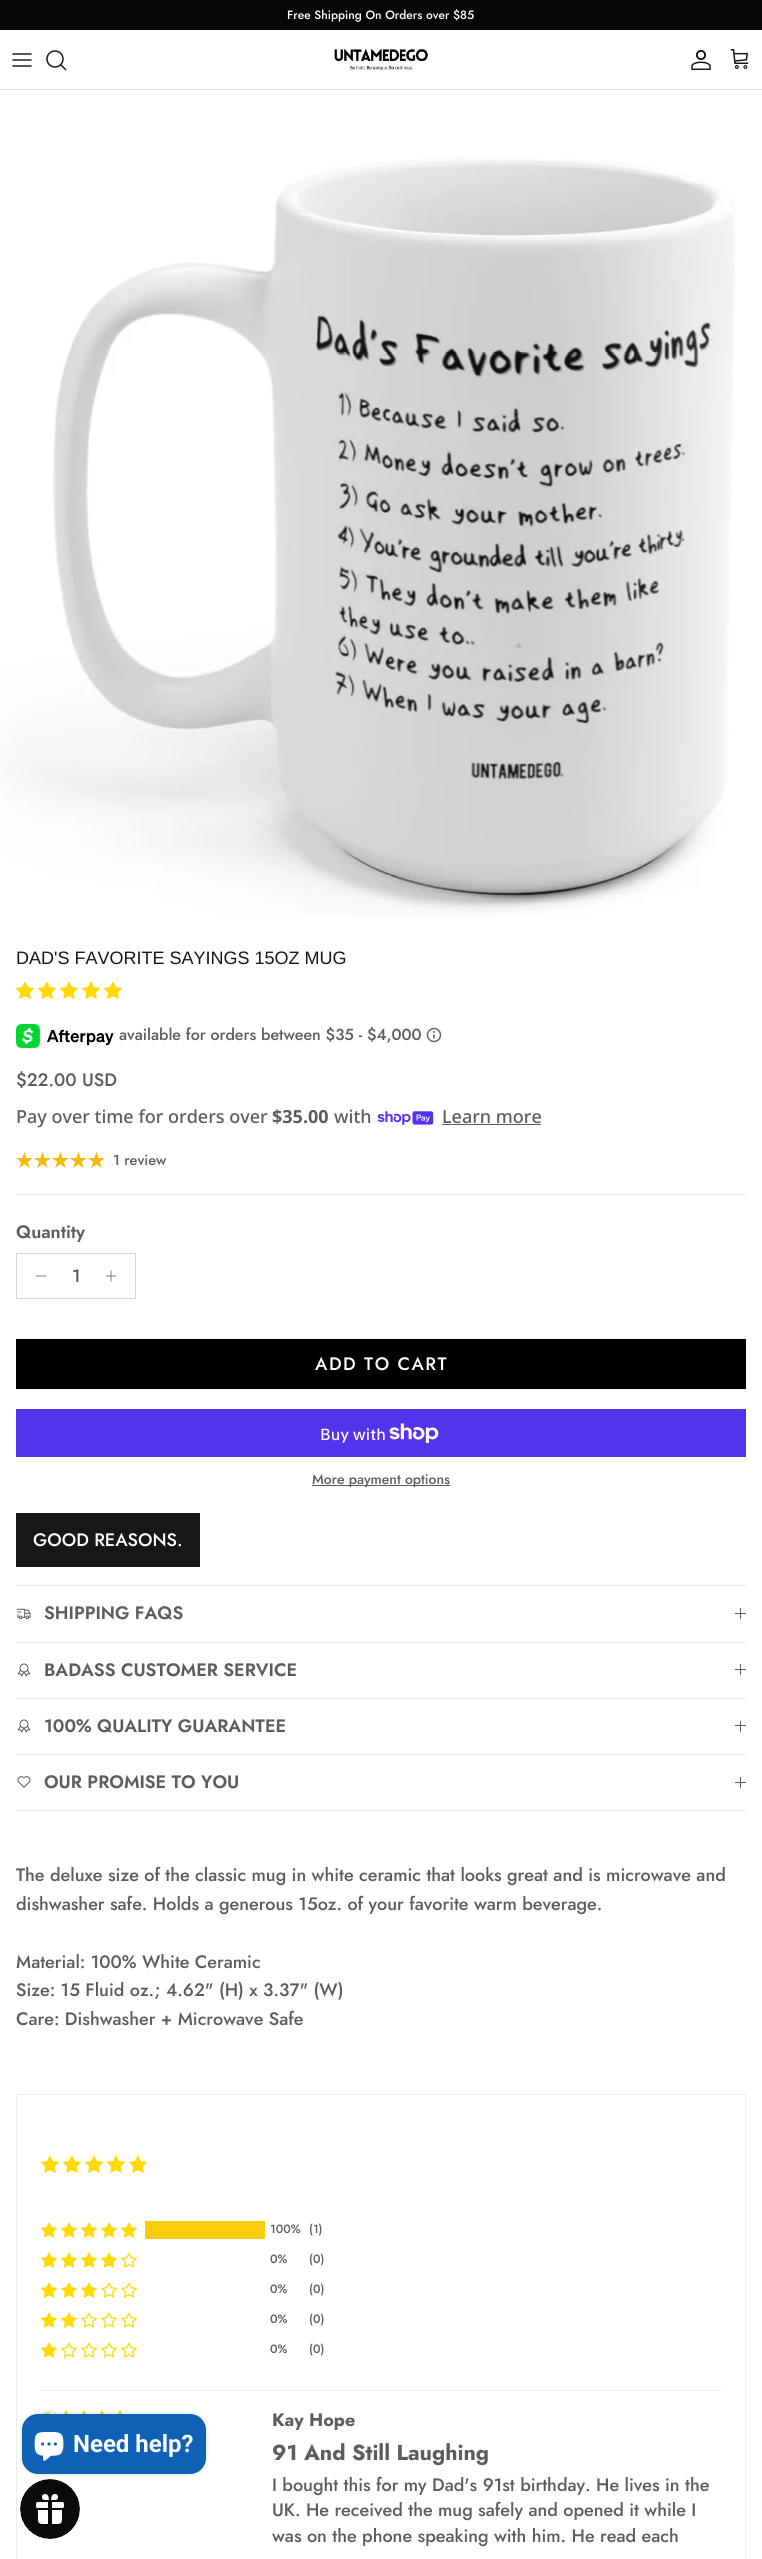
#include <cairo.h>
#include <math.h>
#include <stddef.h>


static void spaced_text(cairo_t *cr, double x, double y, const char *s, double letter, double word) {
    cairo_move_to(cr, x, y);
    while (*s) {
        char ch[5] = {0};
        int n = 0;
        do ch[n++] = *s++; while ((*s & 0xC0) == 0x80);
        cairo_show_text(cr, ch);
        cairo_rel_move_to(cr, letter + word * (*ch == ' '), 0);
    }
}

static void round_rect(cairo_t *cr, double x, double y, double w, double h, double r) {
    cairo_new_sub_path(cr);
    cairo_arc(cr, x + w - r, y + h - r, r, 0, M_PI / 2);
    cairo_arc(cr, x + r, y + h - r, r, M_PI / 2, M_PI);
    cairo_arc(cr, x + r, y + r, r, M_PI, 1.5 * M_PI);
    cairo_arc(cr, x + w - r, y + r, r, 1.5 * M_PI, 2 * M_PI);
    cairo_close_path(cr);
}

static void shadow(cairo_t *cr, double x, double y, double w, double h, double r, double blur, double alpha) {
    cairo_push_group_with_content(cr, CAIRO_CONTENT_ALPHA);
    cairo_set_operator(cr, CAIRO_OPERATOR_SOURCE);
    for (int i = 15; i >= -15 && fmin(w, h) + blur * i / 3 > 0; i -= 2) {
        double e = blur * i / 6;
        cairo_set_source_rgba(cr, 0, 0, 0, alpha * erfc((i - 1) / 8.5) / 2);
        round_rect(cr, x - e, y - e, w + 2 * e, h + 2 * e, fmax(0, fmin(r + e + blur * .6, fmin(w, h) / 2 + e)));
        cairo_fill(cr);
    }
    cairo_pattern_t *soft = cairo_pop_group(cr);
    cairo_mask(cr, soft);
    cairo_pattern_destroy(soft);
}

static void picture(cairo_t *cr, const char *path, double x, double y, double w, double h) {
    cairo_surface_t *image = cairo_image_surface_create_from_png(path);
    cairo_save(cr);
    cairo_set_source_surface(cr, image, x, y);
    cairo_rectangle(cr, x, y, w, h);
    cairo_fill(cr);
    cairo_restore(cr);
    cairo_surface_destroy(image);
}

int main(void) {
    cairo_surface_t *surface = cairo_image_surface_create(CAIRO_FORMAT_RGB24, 762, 2559);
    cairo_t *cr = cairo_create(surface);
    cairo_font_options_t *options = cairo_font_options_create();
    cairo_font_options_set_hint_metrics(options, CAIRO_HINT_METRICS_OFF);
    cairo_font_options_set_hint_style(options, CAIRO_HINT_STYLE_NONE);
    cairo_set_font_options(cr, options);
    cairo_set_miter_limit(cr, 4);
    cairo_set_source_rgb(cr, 1, 1, 1);
    cairo_paint(cr);
    cairo_set_source_rgb(cr, 0.024, 0.024, 0.024);
    cairo_rectangle(cr, 0, 0, 762, 30);
    cairo_fill(cr);
    cairo_select_font_face(cr, "Jost Medium", CAIRO_FONT_SLANT_NORMAL, CAIRO_FONT_WEIGHT_NORMAL);
    cairo_set_font_size(cr, 12);
    cairo_set_source_rgb(cr, 1, 1, 1);
    cairo_move_to(cr, 287, 19);
    cairo_show_text(cr, "Free Shipping On Orders over $85");
    cairo_set_source_rgb(cr, 0.875, 0.89, 0.91);
    cairo_rectangle(cr, 0, 89, 762, 1);
    cairo_fill(cr);
    cairo_new_path(cr);
    cairo_move_to(cr, 13, 60);
    cairo_line_to(cr, 31, 60);
    cairo_move_to(cr, 13, 54);
    cairo_line_to(cr, 31, 54);
    cairo_move_to(cr, 13, 66);
    cairo_line_to(cr, 31, 66);
    cairo_set_source_rgb(cr, 0.09, 0.09, 0.09);
    cairo_set_line_width(cr, 1.5);
    cairo_set_line_cap(cr, CAIRO_LINE_CAP_ROUND);
    cairo_set_line_join(cr, CAIRO_LINE_JOIN_ROUND);
    cairo_stroke(cr);
    cairo_arc(cr, 55, 59, 8, 0, 2 * M_PI);
    cairo_set_line_cap(cr, CAIRO_LINE_CAP_BUTT);
    cairo_set_line_join(cr, CAIRO_LINE_JOIN_MITER);
    cairo_stroke(cr);
    cairo_new_path(cr);
    cairo_move_to(cr, 61, 65);
    cairo_line_to(cr, 65.5, 69.5);
    cairo_set_line_cap(cr, CAIRO_LINE_CAP_SQUARE);
    cairo_stroke(cr);
    picture(cr, "img1.png", 334, 49, 94, 22);
    picture(cr, "img2.png", 691, 50, 20, 20);
    picture(cr, "img3.png", 730, 49, 19, 20);
    picture(cr, "img4.png", 0, 157, 735, 760);
    cairo_select_font_face(cr, "Liberation Sans", CAIRO_FONT_SLANT_NORMAL, CAIRO_FONT_WEIGHT_NORMAL);
    cairo_set_font_size(cr, 18);
    cairo_move_to(cr, 16, 964);
    cairo_show_text(cr, "DAD'S FAVORITE SAYINGS 15OZ MUG");
    picture(cr, "img5.png", 16, 981, 18, 18);
    picture(cr, "img5.png", 38, 981, 18, 18);
    picture(cr, "img5.png", 60, 981, 18, 18);
    picture(cr, "img5.png", 82, 981, 18, 18);
    picture(cr, "img5.png", 104, 981, 18, 18);
    picture(cr, "img6.png", 16, 1024, 98, 24);
    cairo_select_font_face(cr, "Jost Medium", CAIRO_FONT_SLANT_NORMAL, CAIRO_FONT_WEIGHT_NORMAL);
    cairo_set_font_size(cr, 16);
    cairo_set_source_rgb(cr, 0.361, 0.361, 0.361);
    cairo_move_to(cr, 119, 1040);
    cairo_show_text(cr, "available for orders between $35 - $4,000");
    picture(cr, "img7.png", 426, 1027, 16, 16);
    cairo_set_font_size(cr, 18);
    cairo_move_to(cr, 16, 1086);
    cairo_show_text(cr, "$22.00 USD");
    cairo_select_font_face(cr, "Noto Sans Medium", CAIRO_FONT_SLANT_NORMAL, CAIRO_FONT_WEIGHT_NORMAL);
    cairo_move_to(cr, 16, 1123);
    cairo_show_text(cr, "Pay over time for orders over");
    cairo_select_font_face(cr, "Noto Sans", CAIRO_FONT_SLANT_NORMAL, CAIRO_FONT_WEIGHT_BOLD);
    cairo_move_to(cr, 272, 1123);
    cairo_show_text(cr, "$35.00");
    cairo_select_font_face(cr, "Noto Sans Medium", CAIRO_FONT_SLANT_NORMAL, CAIRO_FONT_WEIGHT_NORMAL);
    cairo_move_to(cr, 334, 1123);
    cairo_show_text(cr, "with");
    picture(cr, "img8.png", 377, 1111, 57, 14);
    cairo_move_to(cr, 442, 1123);
    cairo_show_text(cr, "Learn more");
    cairo_rectangle(cr, 442, 1124, 99, 1);
    cairo_fill(cr);
    picture(cr, "img9.png", 16, 1152, 16, 16);
    picture(cr, "img9.png", 34, 1152, 16, 16);
    picture(cr, "img9.png", 52, 1152, 16, 16);
    picture(cr, "img9.png", 70, 1152, 16, 16);
    picture(cr, "img9.png", 88, 1152, 16, 16);
    picture(cr, "img10.png", 16, 1152, 16, 16);
    picture(cr, "img10.png", 34, 1152, 16, 16);
    picture(cr, "img10.png", 52, 1152, 16, 16);
    picture(cr, "img10.png", 70, 1152, 16, 16);
    picture(cr, "img10.png", 88, 1152, 16, 16);
    cairo_select_font_face(cr, "Jost Medium", CAIRO_FONT_SLANT_NORMAL, CAIRO_FONT_WEIGHT_NORMAL);
    cairo_set_font_size(cr, 14.5);
    cairo_move_to(cr, 113, 1165);
    cairo_show_text(cr, "1 review");
    cairo_set_source_rgb(cr, 0.91, 0.91, 0.91);
    cairo_rectangle(cr, 16, 1194, 730, 1);
    cairo_fill(cr);
    cairo_select_font_face(cr, "Jost SemiBold", CAIRO_FONT_SLANT_NORMAL, CAIRO_FONT_WEIGHT_NORMAL);
    cairo_set_font_size(cr, 18);
    cairo_set_source_rgb(cr, 0.361, 0.361, 0.361);
    cairo_move_to(cr, 16, 1238);
    cairo_show_text(cr, "Quantity");
    cairo_rectangle(cr, 16.5, 1253.5, 119, 45);
    cairo_set_source_rgb(cr, 0.839, 0.839, 0.839);
    cairo_set_line_width(cr, 1);
    cairo_set_line_cap(cr, CAIRO_LINE_CAP_BUTT);
    cairo_stroke(cr);
    cairo_new_path(cr);
    cairo_move_to(cr, 36, 1276);
    cairo_line_to(cr, 46, 1276);
    cairo_set_source_rgb(cr, 0.361, 0.361, 0.361);
    cairo_set_line_width(cr, 0.8);
    cairo_set_line_cap(cr, CAIRO_LINE_CAP_ROUND);
    cairo_set_line_join(cr, CAIRO_LINE_JOIN_ROUND);
    cairo_stroke(cr);
    cairo_select_font_face(cr, "Jost Medium", CAIRO_FONT_SLANT_NORMAL, CAIRO_FONT_WEIGHT_NORMAL);
    cairo_move_to(cr, 72, 1282);
    cairo_show_text(cr, "1");
    cairo_new_path(cr);
    cairo_move_to(cr, 111, 1271);
    cairo_line_to(cr, 111, 1281);
    cairo_move_to(cr, 106, 1276);
    cairo_line_to(cr, 116, 1276);
    cairo_stroke(cr);
    cairo_set_source_rgb(cr, 0, 0, 0);
    cairo_rectangle(cr, 16, 1339, 730, 50);
    cairo_fill(cr);
    cairo_set_source_rgb(cr, 1, 1, 1);
    spaced_text(cr, 315, 1370, "ADD TO CART", 1.5, 0);
    cairo_set_source_rgb(cr, 0, 0, 0);
    cairo_new_path(cr);
    cairo_move_to(cr, 371.5, 1364);
    cairo_line_to(cr, 379.5, 1372);
    cairo_line_to(cr, 378.5, 1373);
    cairo_line_to(cr, 370, 1365);
    cairo_close_path(cr);
    cairo_fill(cr);
    cairo_set_source_rgb(cr, 0.329, 0.2, 0.922);
    cairo_rectangle(cr, 16, 1409, 730, 48);
    cairo_fill(cr);
    cairo_select_font_face(cr, "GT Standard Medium", CAIRO_FONT_SLANT_NORMAL, CAIRO_FONT_WEIGHT_NORMAL);
    cairo_set_font_size(cr, 16);
    cairo_set_source_rgb(cr, 1, 1, 1);
    cairo_move_to(cr, 320, 1440);
    cairo_show_text(cr, "Buy with");
    picture(cr, "img11.png", 389, 1423, 50, 20);
    cairo_set_source_rgb(cr, 0.361, 0.361, 0.361);
    cairo_rectangle(cr, 312, 1485, 138, 1);
    cairo_fill(cr);
    cairo_select_font_face(cr, "Jost Medium", CAIRO_FONT_SLANT_NORMAL, CAIRO_FONT_WEIGHT_NORMAL);
    cairo_set_font_size(cr, 14);
    cairo_move_to(cr, 312, 1484);
    cairo_show_text(cr, "More payment options");
    cairo_set_source_rgb(cr, 0.09, 0.09, 0.09);
    cairo_rectangle(cr, 16, 1513, 184, 54);
    cairo_fill(cr);
    cairo_set_font_size(cr, 18);
    cairo_set_source_rgb(cr, 1, 1, 1);
    cairo_move_to(cr, 33, 1546);
    cairo_show_text(cr, "GOOD REASONS.");
    cairo_set_source_rgb(cr, 0.906, 0.906, 0.906);
    cairo_rectangle(cr, 16, 1585, 730, 1);
    cairo_fill(cr);
    cairo_rectangle(cr, 16, 1642, 730, 1);
    cairo_fill(cr);
    picture(cr, "img12.png", 16, 1608, 15, 12);
    cairo_select_font_face(cr, "Jost SemiBold", CAIRO_FONT_SLANT_NORMAL, CAIRO_FONT_WEIGHT_NORMAL);
    cairo_set_source_rgb(cr, 0.361, 0.361, 0.361);
    cairo_move_to(cr, 44, 1619);
    cairo_show_text(cr, "SHIPPING FAQS");
    cairo_rectangle(cr, 740, 1608, 1, 11);
    cairo_fill(cr);
    cairo_rectangle(cr, 735, 1613, 11, 1);
    cairo_fill(cr);
    cairo_set_source_rgb(cr, 0.906, 0.906, 0.906);
    cairo_rectangle(cr, 16, 1698, 730, 1);
    cairo_fill(cr);
    picture(cr, "img13.png", 17, 1663, 14, 14);
    cairo_set_source_rgb(cr, 0.361, 0.361, 0.361);
    cairo_move_to(cr, 44, 1676);
    cairo_show_text(cr, "BADASS CUSTOMER SERVICE");
    cairo_rectangle(cr, 740, 1664, 1, 11);
    cairo_fill(cr);
    cairo_rectangle(cr, 735, 1669, 11, 1);
    cairo_fill(cr);
    cairo_set_source_rgb(cr, 0.906, 0.906, 0.906);
    cairo_rectangle(cr, 16, 1754, 730, 1);
    cairo_fill(cr);
    picture(cr, "img13.png", 17, 1719, 14, 14);
    cairo_set_source_rgb(cr, 0.361, 0.361, 0.361);
    cairo_move_to(cr, 44, 1732);
    cairo_show_text(cr, "100% QUALITY GUARANTEE");
    cairo_rectangle(cr, 740, 1721, 1, 11);
    cairo_fill(cr);
    cairo_rectangle(cr, 735, 1725, 11, 1);
    cairo_fill(cr);
    cairo_set_source_rgb(cr, 0.906, 0.906, 0.906);
    cairo_rectangle(cr, 16, 1810, 730, 1);
    cairo_fill(cr);
    picture(cr, "img14.png", 17, 1776, 14, 12);
    cairo_set_source_rgb(cr, 0.361, 0.361, 0.361);
    cairo_move_to(cr, 44, 1788);
    cairo_show_text(cr, "OUR PROMISE TO YOU");
    cairo_rectangle(cr, 740, 1777, 1, 11);
    cairo_fill(cr);
    cairo_rectangle(cr, 735, 1782, 11, 1);
    cairo_fill(cr);
    cairo_select_font_face(cr, "Jost Medium", CAIRO_FONT_SLANT_NORMAL, CAIRO_FONT_WEIGHT_NORMAL);
    cairo_move_to(cr, 16, 1881);
    cairo_show_text(cr, "The deluxe size of the classic mug in white ceramic that looks great and is microwave and");
    cairo_move_to(cr, 16, 1910);
    cairo_show_text(cr, "dishwasher safe. Holds a generous 15oz. of your favorite warm beverage.");
    cairo_move_to(cr, 16, 1968);
    cairo_show_text(cr, "Material: 100% White Ceramic");
    cairo_move_to(cr, 16, 1996);
    cairo_show_text(cr, "Size: 15 Fluid oz.; 4.62\" (H) x 3.37\" (W)");
    cairo_move_to(cr, 16, 2025);
    cairo_show_text(cr, "Care: Dishwasher + Microwave Safe");
    cairo_rectangle(cr, 16.5, 2094.5, 729, 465);
    cairo_set_source_rgb(cr, 0.933, 0.933, 0.933);
    cairo_set_line_width(cr, 1);
    cairo_set_line_cap(cr, CAIRO_LINE_CAP_BUTT);
    cairo_set_line_join(cr, CAIRO_LINE_JOIN_MITER);
    cairo_stroke(cr);
    picture(cr, "img5.png", 41, 2155, 18, 18);
    picture(cr, "img5.png", 63, 2155, 18, 18);
    picture(cr, "img5.png", 85, 2155, 18, 18);
    picture(cr, "img5.png", 107, 2155, 18, 18);
    picture(cr, "img5.png", 129, 2155, 18, 18);
    picture(cr, "img15.png", 41, 2222, 16, 16);
    picture(cr, "img15.png", 61, 2222, 16, 16);
    picture(cr, "img15.png", 81, 2222, 16, 16);
    picture(cr, "img15.png", 101, 2222, 16, 16);
    picture(cr, "img15.png", 121, 2222, 16, 16);
    cairo_set_source_rgb(cr, 0.984, 0.804, 0.039);
    cairo_rectangle(cr, 145, 2221, 120, 18);
    cairo_fill(cr);
    cairo_set_font_size(cr, 12);
    cairo_set_source_rgb(cr, 0.361, 0.361, 0.361);
    cairo_move_to(cr, 270, 2233);
    cairo_show_text(cr, "100%");
    cairo_move_to(cr, 309, 2233);
    cairo_show_text(cr, "(1)");
    picture(cr, "img15.png", 41, 2252, 16, 16);
    picture(cr, "img15.png", 61, 2252, 16, 16);
    picture(cr, "img15.png", 81, 2252, 16, 16);
    picture(cr, "img15.png", 101, 2252, 16, 16);
    picture(cr, "img16.png", 121, 2252, 16, 16);
    cairo_move_to(cr, 270, 2263);
    cairo_show_text(cr, "0%");
    cairo_move_to(cr, 309, 2263);
    cairo_show_text(cr, "(0)");
    picture(cr, "img15.png", 41, 2282, 16, 16);
    picture(cr, "img15.png", 61, 2282, 16, 16);
    picture(cr, "img15.png", 81, 2282, 16, 16);
    picture(cr, "img16.png", 101, 2282, 16, 16);
    picture(cr, "img16.png", 121, 2282, 16, 16);
    cairo_move_to(cr, 270, 2293);
    cairo_show_text(cr, "0%");
    cairo_move_to(cr, 309, 2293);
    cairo_show_text(cr, "(0)");
    picture(cr, "img15.png", 41, 2312, 16, 16);
    picture(cr, "img15.png", 61, 2312, 16, 16);
    picture(cr, "img16.png", 81, 2312, 16, 16);
    picture(cr, "img16.png", 101, 2312, 16, 16);
    picture(cr, "img16.png", 121, 2312, 16, 16);
    cairo_move_to(cr, 270, 2323);
    cairo_show_text(cr, "0%");
    cairo_move_to(cr, 309, 2323);
    cairo_show_text(cr, "(0)");
    picture(cr, "img15.png", 41, 2342, 16, 16);
    picture(cr, "img16.png", 61, 2342, 16, 16);
    picture(cr, "img16.png", 81, 2342, 16, 16);
    picture(cr, "img16.png", 101, 2342, 16, 16);
    picture(cr, "img16.png", 121, 2342, 16, 16);
    cairo_move_to(cr, 270, 2353);
    cairo_show_text(cr, "0%");
    cairo_move_to(cr, 309, 2353);
    cairo_show_text(cr, "(0)");
    cairo_set_source_rgb(cr, 0.933, 0.933, 0.933);
    cairo_rectangle(cr, 41, 2390, 680, 1);
    cairo_fill(cr);
    picture(cr, "img17.png", 45, 2410, 6, 4);
    cairo_new_path(cr);
    cairo_move_to(cr, 44.5, 2413.5);
    cairo_curve_to(cr, 46, 2411.5, 49, 2410.5, 51.5, 2411);
    cairo_curve_to(cr, 61, 2413, 59.5, 2427, 50, 2427);
    cairo_curve_to(cr, 48, 2427, 46, 2426, 44.5, 2424.5);
    cairo_set_line_width(cr, 2);
    cairo_stroke(cr);
    cairo_new_path(cr);
    cairo_move_to(cr, 44.5, 2424.5);
    cairo_curve_to(cr, 41.5, 2421.5, 41.5, 2416.5, 44.5, 2413.5);
    cairo_set_source_rgb(cr, 0.667, 0.667, 0.667);
    cairo_stroke(cr);
    picture(cr, "img17.png", 63, 2410, 6, 4);
    picture(cr, "img17.png", 81, 2410, 6, 4);
    picture(cr, "img17.png", 99, 2410, 6, 4);
    picture(cr, "img17.png", 117, 2410, 6, 4);
    cairo_select_font_face(cr, "Jost", CAIRO_FONT_SLANT_NORMAL, CAIRO_FONT_WEIGHT_BOLD);
    cairo_set_font_size(cr, 18);
    cairo_set_source_rgb(cr, 0.361, 0.361, 0.361);
    cairo_move_to(cr, 272, 2426);
    cairo_show_text(cr, "Kay Hope");
    cairo_set_font_size(cr, 21.6);
    cairo_move_to(cr, 272, 2460);
    cairo_show_text(cr, "91 And Still Laughing");
    cairo_select_font_face(cr, "Jost Medium", CAIRO_FONT_SLANT_NORMAL, CAIRO_FONT_WEIGHT_NORMAL);
    cairo_set_font_size(cr, 18);
    cairo_move_to(cr, 272, 2491);
    cairo_show_text(cr, "I bought this for my Dad's 91st birthday. He lives in the");
    cairo_move_to(cr, 272, 2516);
    cairo_show_text(cr, "UK. He received the mug safely and opened it while I");
    cairo_move_to(cr, 272, 2542);
    cairo_show_text(cr, "was on the phone speaking with him. He read each");
    cairo_set_source_rgb(cr, 0, 0, 0);
    shadow(cr, 22, 2414, 184, 60, 16, 2.5, 0.15);
    cairo_set_source_rgb(cr, 0.059, 0.38, 0.714);
    round_rect(cr, 22, 2414, 184, 60, 16);
    cairo_fill(cr);
    picture(cr, "img18.png", 34, 2432, 30, 29);
    cairo_select_font_face(cr, "Roboto", CAIRO_FONT_SLANT_NORMAL, CAIRO_FONT_WEIGHT_BOLD);
    cairo_set_font_size(cr, 24);
    cairo_set_source_rgb(cr, 1, 1, 1);
    cairo_move_to(cr, 73, 2452);
    cairo_show_text(cr, "Need help?");
    picture(cr, "img19.png", 20, 2479, 60, 60);
    cairo_surface_write_to_png(surface, "page.png");
    cairo_font_options_destroy(options);
    cairo_destroy(cr);
    cairo_surface_destroy(surface);
    return 0;
}
